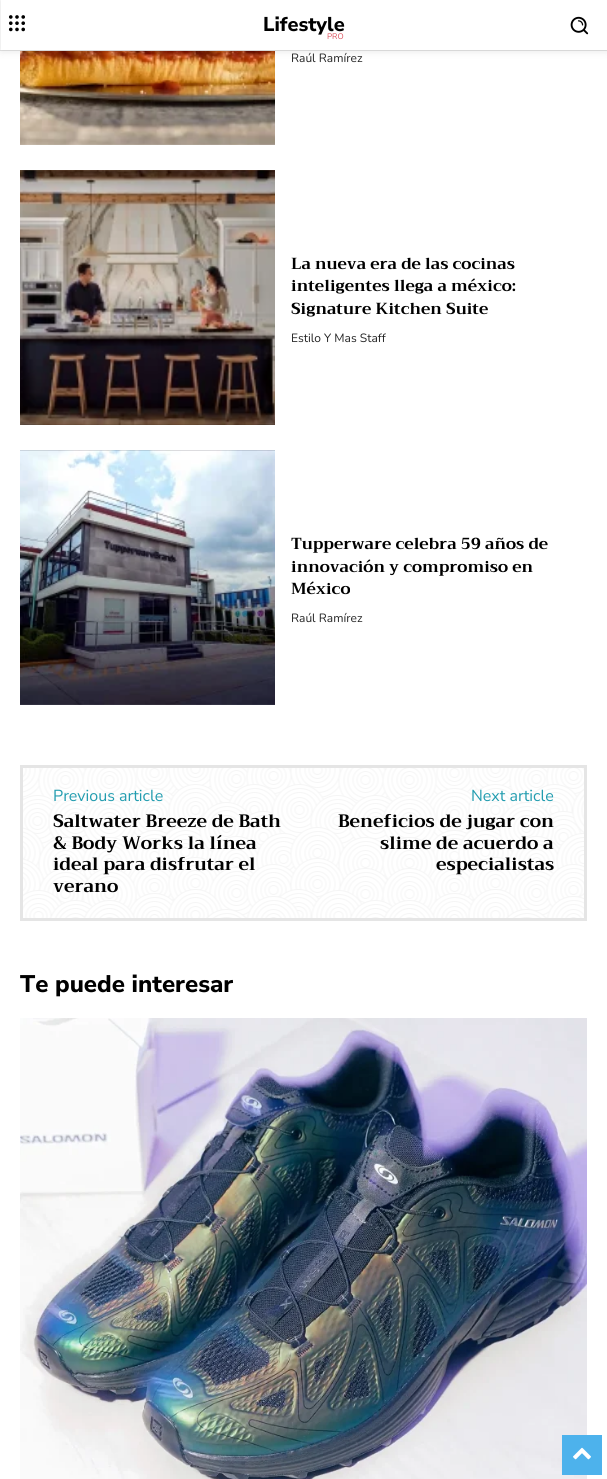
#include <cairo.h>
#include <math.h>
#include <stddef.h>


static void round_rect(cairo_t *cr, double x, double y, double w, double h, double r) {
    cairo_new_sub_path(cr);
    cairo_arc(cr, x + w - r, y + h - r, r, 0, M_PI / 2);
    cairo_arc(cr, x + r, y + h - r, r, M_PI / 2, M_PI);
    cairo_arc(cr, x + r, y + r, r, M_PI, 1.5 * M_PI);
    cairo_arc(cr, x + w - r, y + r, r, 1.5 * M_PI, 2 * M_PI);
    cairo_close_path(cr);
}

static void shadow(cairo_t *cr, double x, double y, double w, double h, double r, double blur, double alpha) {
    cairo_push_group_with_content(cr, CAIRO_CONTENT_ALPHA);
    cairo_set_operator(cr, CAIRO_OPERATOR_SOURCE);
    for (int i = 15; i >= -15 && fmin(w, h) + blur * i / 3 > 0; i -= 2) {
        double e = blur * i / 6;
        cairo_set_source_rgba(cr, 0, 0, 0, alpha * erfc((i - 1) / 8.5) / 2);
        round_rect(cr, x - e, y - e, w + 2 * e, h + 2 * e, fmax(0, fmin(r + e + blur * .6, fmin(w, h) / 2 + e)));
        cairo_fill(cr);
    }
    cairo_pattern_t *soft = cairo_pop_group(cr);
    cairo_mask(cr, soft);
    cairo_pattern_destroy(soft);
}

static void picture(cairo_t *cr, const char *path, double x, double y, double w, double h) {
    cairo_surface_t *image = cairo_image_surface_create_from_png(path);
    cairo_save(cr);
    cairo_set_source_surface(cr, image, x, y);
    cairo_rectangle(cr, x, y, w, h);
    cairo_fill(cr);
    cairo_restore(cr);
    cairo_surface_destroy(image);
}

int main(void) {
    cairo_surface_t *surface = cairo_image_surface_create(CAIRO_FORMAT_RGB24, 607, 1479);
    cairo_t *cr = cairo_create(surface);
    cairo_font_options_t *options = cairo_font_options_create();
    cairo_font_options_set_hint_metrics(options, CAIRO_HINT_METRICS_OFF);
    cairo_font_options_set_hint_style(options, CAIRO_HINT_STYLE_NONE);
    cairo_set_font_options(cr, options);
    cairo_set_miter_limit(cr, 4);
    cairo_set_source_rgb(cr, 1, 1, 1);
    cairo_paint(cr);
    cairo_set_source_rgb(cr, 0.898, 0.898, 0.898);
    cairo_rectangle(cr, 0, 50, 607, 1);
    cairo_fill(cr);
    picture(cr, "img1.png", 8, 15, 17, 17);
    picture(cr, "img2.png", 570, 16, 19, 19);
    picture(cr, "img3.png", 20, 51, 255, 94);
    cairo_save(cr);
    cairo_set_fill_rule(cr, CAIRO_FILL_RULE_EVEN_ODD);
    cairo_new_path(cr);
    cairo_move_to(cr, 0, 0);
    cairo_line_to(cr, 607, 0);
    cairo_line_to(cr, 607, 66);
    cairo_line_to(cr, 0, 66);
    cairo_close_path(cr);
    cairo_move_to(cr, 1, 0);
    cairo_line_to(cr, 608, 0);
    cairo_line_to(cr, 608, 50);
    cairo_line_to(cr, 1, 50);
    cairo_close_path(cr);
    cairo_clip(cr);
    cairo_set_source_rgb(cr, 0, 0, 0);
    shadow(cr, 1, 0, 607, 50, 0, 5, 0.12);
    cairo_restore(cr);
    cairo_select_font_face(cr, "Nunito Sans ExtraBold", CAIRO_FONT_SLANT_NORMAL, CAIRO_FONT_WEIGHT_NORMAL);
    cairo_set_font_size(cr, 20);
    cairo_set_source_rgb(cr, 0, 0, 0);
    cairo_move_to(cr, 263, 31);
    cairo_show_text(cr, "Lifestyle");
    cairo_select_font_face(cr, "Nunito", CAIRO_FONT_SLANT_NORMAL, CAIRO_FONT_WEIGHT_NORMAL);
    cairo_set_font_size(cr, 8);
    cairo_set_source_rgb(cr, 0.859, 0.306, 0.353);
    cairo_move_to(cr, 327, 39);
    cairo_show_text(cr, "PRO");
    cairo_set_font_size(cr, 12);
    cairo_set_source_rgb(cr, 0.137, 0.137, 0.137);
    cairo_move_to(cr, 291, 62);
    cairo_show_text(cr, "Raúl Ramírez");
    picture(cr, "img4.png", 20, 170, 255, 255);
    cairo_select_font_face(cr, "Trirong", CAIRO_FONT_SLANT_NORMAL, CAIRO_FONT_WEIGHT_BOLD);
    cairo_set_font_size(cr, 16);
    cairo_set_source_rgb(cr, 0, 0, 0);
    cairo_move_to(cr, 291, 269);
    cairo_show_text(cr, "La nueva era de las cocinas");
    cairo_move_to(cr, 291, 291);
    cairo_show_text(cr, "inteligentes llega a méxico:");
    cairo_move_to(cr, 291, 314);
    cairo_show_text(cr, "Signature Kitchen Suite");
    cairo_select_font_face(cr, "Nunito", CAIRO_FONT_SLANT_NORMAL, CAIRO_FONT_WEIGHT_NORMAL);
    cairo_set_font_size(cr, 12);
    cairo_set_source_rgb(cr, 0.137, 0.137, 0.137);
    cairo_move_to(cr, 291, 342);
    cairo_show_text(cr, "Estilo Y Mas Staff");
    picture(cr, "img5.png", 20, 450, 255, 255);
    cairo_select_font_face(cr, "Trirong", CAIRO_FONT_SLANT_NORMAL, CAIRO_FONT_WEIGHT_BOLD);
    cairo_set_font_size(cr, 16);
    cairo_set_source_rgb(cr, 0, 0, 0);
    cairo_move_to(cr, 291, 549);
    cairo_show_text(cr, "Tupperware celebra 59 años de");
    cairo_move_to(cr, 291, 572);
    cairo_show_text(cr, "innovación y compromiso en");
    cairo_move_to(cr, 291, 594);
    cairo_show_text(cr, "México");
    cairo_select_font_face(cr, "Nunito", CAIRO_FONT_SLANT_NORMAL, CAIRO_FONT_WEIGHT_NORMAL);
    cairo_set_font_size(cr, 12);
    cairo_set_source_rgb(cr, 0.137, 0.137, 0.137);
    cairo_move_to(cr, 291, 622);
    cairo_show_text(cr, "Raúl Ramírez");
    cairo_rectangle(cr, 21.5, 766.5, 564, 153);
    cairo_set_source_rgb(cr, 0.898, 0.898, 0.898);
    cairo_set_line_width(cr, 3);
    cairo_stroke(cr);
    picture(cr, "img6.png", 23, 768, 561, 150);
    cairo_select_font_face(cr, "Nunito Sans", CAIRO_FONT_SLANT_NORMAL, CAIRO_FONT_WEIGHT_NORMAL);
    cairo_set_font_size(cr, 16);
    cairo_set_source_rgb(cr, 0.129, 0.612, 0.686);
    cairo_move_to(cr, 53, 801);
    cairo_show_text(cr, "Previous article");
    cairo_select_font_face(cr, "Trirong", CAIRO_FONT_SLANT_NORMAL, CAIRO_FONT_WEIGHT_BOLD);
    cairo_set_font_size(cr, 18);
    cairo_set_source_rgb(cr, 0, 0, 0);
    cairo_move_to(cr, 53, 827);
    cairo_show_text(cr, "Saltwater Breeze de Bath");
    cairo_move_to(cr, 53, 849);
    cairo_show_text(cr, "& Body Works la línea");
    cairo_move_to(cr, 53, 870);
    cairo_show_text(cr, "ideal para disfrutar el");
    cairo_move_to(cr, 53, 892);
    cairo_show_text(cr, "verano");
    cairo_select_font_face(cr, "Nunito Sans", CAIRO_FONT_SLANT_NORMAL, CAIRO_FONT_WEIGHT_NORMAL);
    cairo_set_font_size(cr, 16);
    cairo_set_source_rgb(cr, 0.129, 0.612, 0.686);
    cairo_move_to(cr, 471, 801);
    cairo_show_text(cr, "Next article");
    cairo_select_font_face(cr, "Trirong", CAIRO_FONT_SLANT_NORMAL, CAIRO_FONT_WEIGHT_BOLD);
    cairo_set_font_size(cr, 18);
    cairo_set_source_rgb(cr, 0, 0, 0);
    cairo_move_to(cr, 338, 827);
    cairo_show_text(cr, "Beneficios de jugar con");
    cairo_move_to(cr, 380, 849);
    cairo_show_text(cr, "slime de acuerdo a");
    cairo_move_to(cr, 436, 870);
    cairo_show_text(cr, "especialistas");
    cairo_select_font_face(cr, "Nunito Sans ExtraBold", CAIRO_FONT_SLANT_NORMAL, CAIRO_FONT_WEIGHT_NORMAL);
    cairo_set_font_size(cr, 24);
    cairo_move_to(cr, 20, 992);
    cairo_show_text(cr, "Te puede interesar");
    picture(cr, "img7.png", 20, 1018, 567, 461);
    cairo_set_source_rgb(cr, 0.302, 0.698, 0.925);
    cairo_rectangle(cr, 562, 1435, 40, 40);
    cairo_fill(cr);
    picture(cr, "img8.png", 573, 1447, 18, 13);
    cairo_surface_write_to_png(surface, "page.png");
    cairo_font_options_destroy(options);
    cairo_destroy(cr);
    cairo_surface_destroy(surface);
    return 0;
}
